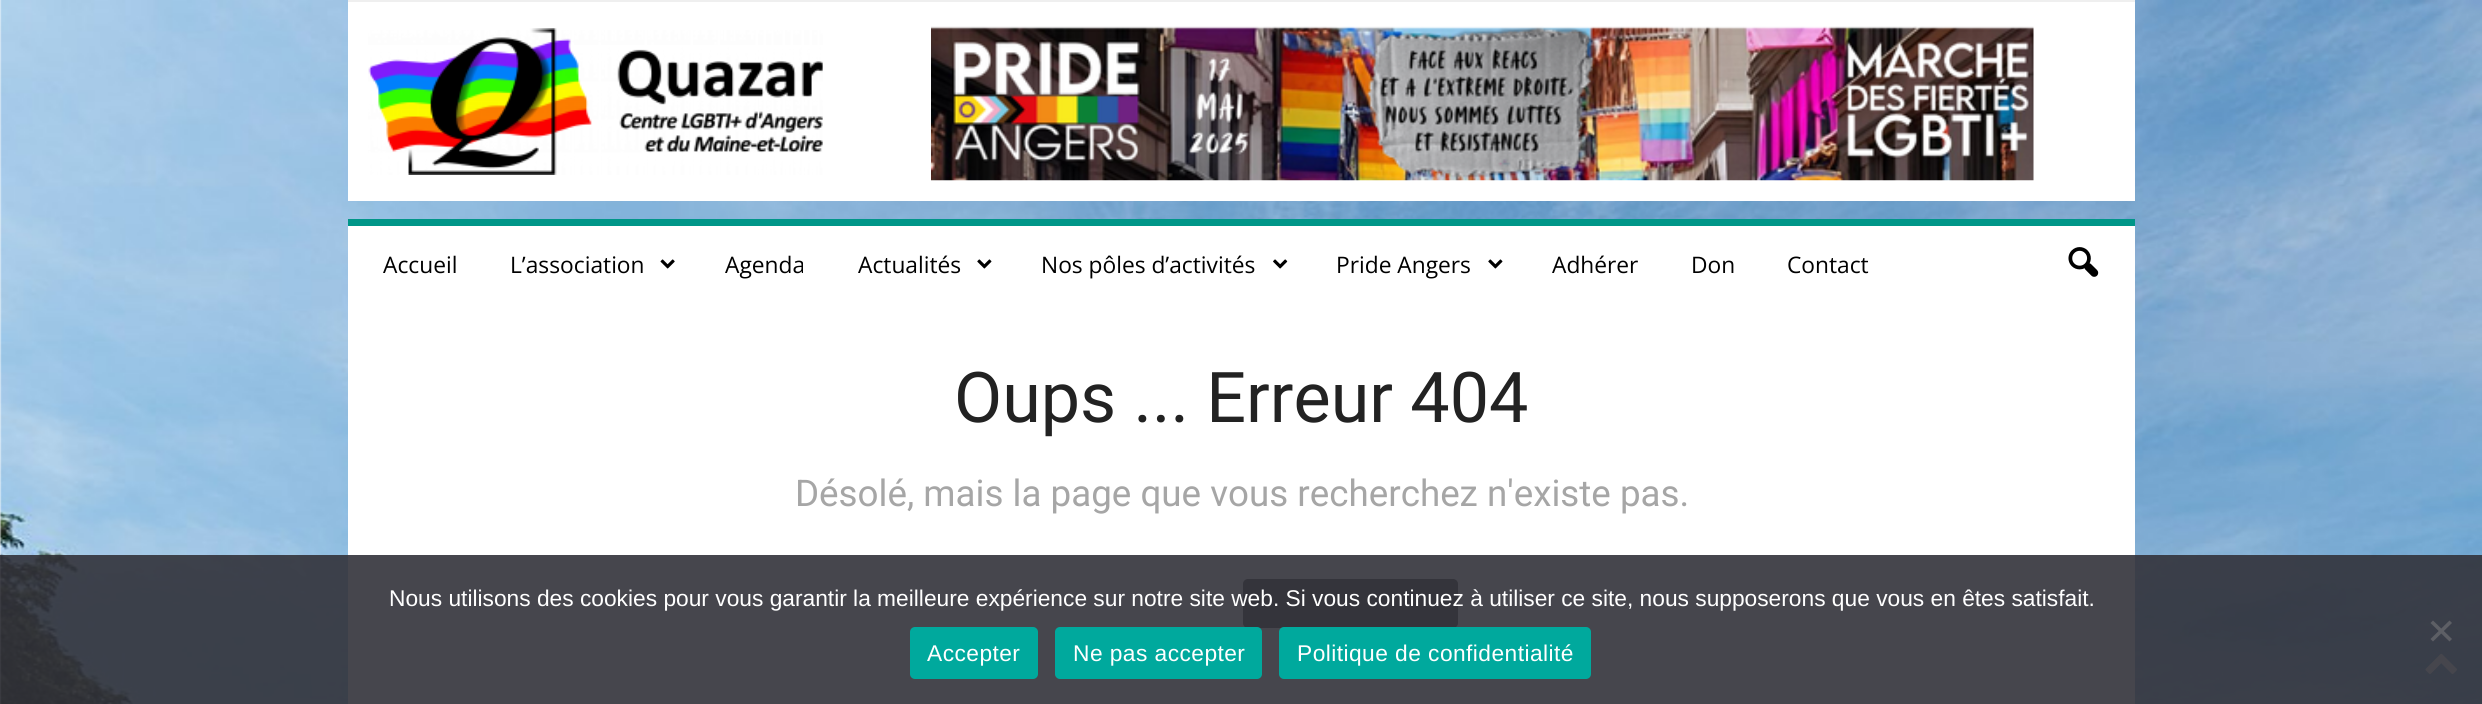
#include <cairo.h>
#include <math.h>
#include <stddef.h>


static void spaced_text(cairo_t *cr, double x, double y, const char *s, double letter, double word) {
    cairo_move_to(cr, x, y);
    while (*s) {
        char ch[5] = {0};
        int n = 0;
        do ch[n++] = *s++; while ((*s & 0xC0) == 0x80);
        cairo_show_text(cr, ch);
        cairo_rel_move_to(cr, letter + word * (*ch == ' '), 0);
    }
}

static void round_rect(cairo_t *cr, double x, double y, double w, double h, double r) {
    cairo_new_sub_path(cr);
    cairo_arc(cr, x + w - r, y + h - r, r, 0, M_PI / 2);
    cairo_arc(cr, x + r, y + h - r, r, M_PI / 2, M_PI);
    cairo_arc(cr, x + r, y + r, r, M_PI, 1.5 * M_PI);
    cairo_arc(cr, x + w - r, y + r, r, 1.5 * M_PI, 2 * M_PI);
    cairo_close_path(cr);
}

static void picture(cairo_t *cr, const char *path, double x, double y, double w, double h) {
    cairo_surface_t *image = cairo_image_surface_create_from_png(path);
    cairo_save(cr);
    cairo_set_source_surface(cr, image, x, y);
    cairo_rectangle(cr, x, y, w, h);
    cairo_fill(cr);
    cairo_restore(cr);
    cairo_surface_destroy(image);
}

int main(void) {
    cairo_surface_t *surface = cairo_image_surface_create(CAIRO_FORMAT_RGB24, 2482, 704);
    cairo_t *cr = cairo_create(surface);
    cairo_font_options_t *options = cairo_font_options_create();
    cairo_font_options_set_hint_metrics(options, CAIRO_HINT_METRICS_OFF);
    cairo_font_options_set_hint_style(options, CAIRO_HINT_STYLE_NONE);
    cairo_set_font_options(cr, options);
    cairo_set_miter_limit(cr, 4);
    cairo_set_source_rgb(cr, 1, 1, 1);
    cairo_paint(cr);
    picture(cr, "img1.png", 0, 0, 2482, 704);
    cairo_set_source_rgb(cr, 0.937, 0.937, 0.937);
    cairo_rectangle(cr, 348, 0, 1787, 2);
    cairo_fill(cr);
    cairo_set_source_rgb(cr, 1, 1, 1);
    cairo_rectangle(cr, 348, 2, 1787, 199);
    cairo_fill(cr);
    picture(cr, "img2.png", 368, 28, 455, 147);
    picture(cr, "img3.png", 931, 26, 1103, 155);
    cairo_set_source_rgb(cr, 0, 0.588, 0.533);
    cairo_rectangle(cr, 348, 219, 1787, 7);
    cairo_fill(cr);
    cairo_set_source_rgb(cr, 1, 1, 1);
    cairo_rectangle(cr, 348, 226, 1787, 478);
    cairo_fill(cr);
    cairo_select_font_face(cr, "Open Sans", CAIRO_FONT_SLANT_NORMAL, CAIRO_FONT_WEIGHT_NORMAL);
    cairo_set_font_size(cr, 22.75);
    cairo_set_source_rgb(cr, 0, 0, 0);
    cairo_move_to(cr, 383, 273);
    cairo_show_text(cr, "Accueil");
    cairo_move_to(cr, 510, 273);
    cairo_show_text(cr, "L’association");
    picture(cr, "img4.png", 660, 259, 15, 10);
    cairo_move_to(cr, 725, 273);
    cairo_show_text(cr, "Agenda");
    cairo_move_to(cr, 858, 273);
    cairo_show_text(cr, "Actualités");
    picture(cr, "img5.png", 977, 259, 15, 10);
    cairo_move_to(cr, 1041, 273);
    cairo_show_text(cr, "Nos pôles d’activités");
    picture(cr, "img6.png", 1273, 259, 15, 10);
    cairo_move_to(cr, 1336, 273);
    cairo_show_text(cr, "Pride Angers");
    picture(cr, "img5.png", 1488, 259, 15, 10);
    cairo_move_to(cr, 1552, 273);
    cairo_show_text(cr, "Adhérer");
    cairo_move_to(cr, 1691, 273);
    cairo_show_text(cr, "Don");
    cairo_move_to(cr, 1787, 273);
    cairo_show_text(cr, "Contact");
    picture(cr, "img7.png", 2068, 247, 31, 30);
    cairo_select_font_face(cr, "Roboto", CAIRO_FONT_SLANT_NORMAL, CAIRO_FONT_WEIGHT_NORMAL);
    cairo_set_font_size(cr, 70);
    cairo_set_source_rgb(cr, 0.133, 0.133, 0.133);
    cairo_move_to(cr, 954, 422);
    cairo_show_text(cr, "Oups ... Erreur 404");
    cairo_set_font_size(cr, 36.75);
    cairo_set_source_rgb(cr, 0.651, 0.651, 0.651);
    cairo_move_to(cr, 795, 506);
    cairo_show_text(cr, "Désolé, mais la page que vous recherchez n'existe pas.");
    cairo_set_source_rgb(cr, 0.267, 0.267, 0.267);
    round_rect(cr, 1243, 579, 215, 49, 5);
    cairo_fill(cr);
    picture(cr, "img8.png", 2425, 653, 32, 21);
    cairo_set_source_rgba(cr, 0.196, 0.196, 0.227, 0.9);
    cairo_rectangle(cr, 0, 555, 2482, 149);
    cairo_fill(cr);
    cairo_select_font_face(cr, "Liberation Sans", CAIRO_FONT_SLANT_NORMAL, CAIRO_FONT_WEIGHT_NORMAL);
    cairo_set_font_size(cr, 22.75);
    cairo_set_source_rgb(cr, 1, 1, 1);
    cairo_move_to(cr, 389, 606);
    cairo_show_text(cr, "Nous utilisons des cookies pour vous garantir la meilleure expérience sur notre site web. Si vous continuez à utiliser ce site, nous supposerons que vous en êtes satisfait.");
    cairo_set_source_rgb(cr, 0.365, 0.373, 0.396);
    cairo_new_path(cr);
    cairo_move_to(cr, 2449.5, 620.5);
    cairo_line_to(cr, 2452, 623);
    cairo_line_to(cr, 2433, 641.5);
    cairo_line_to(cr, 2430.5, 639);
    cairo_close_path(cr);
    cairo_fill(cr);
    cairo_new_path(cr);
    cairo_move_to(cr, 2430.5, 623);
    cairo_line_to(cr, 2433, 620.5);
    cairo_line_to(cr, 2452, 639);
    cairo_line_to(cr, 2449.5, 641.5);
    cairo_close_path(cr);
    cairo_fill(cr);
    cairo_set_source_rgb(cr, 0, 0.663, 0.616);
    round_rect(cr, 910, 627, 128, 52, 5);
    cairo_fill(cr);
    cairo_set_source_rgb(cr, 1, 1, 1);
    spaced_text(cr, 927, 661, "Accepter", 0.45, 0);
    cairo_set_source_rgb(cr, 0, 0.663, 0.616);
    round_rect(cr, 1055, 627, 207, 52, 5);
    cairo_fill(cr);
    cairo_set_source_rgb(cr, 1, 1, 1);
    spaced_text(cr, 1073, 661, "Ne pas accepter", 0.45, 0);
    cairo_set_source_rgb(cr, 0, 0.663, 0.616);
    round_rect(cr, 1279, 627, 312, 52, 5);
    cairo_fill(cr);
    cairo_set_source_rgb(cr, 1, 1, 1);
    spaced_text(cr, 1297, 661, "Politique de confidentialité", 0.45, 0);
    cairo_surface_write_to_png(surface, "page.png");
    cairo_font_options_destroy(options);
    cairo_destroy(cr);
    cairo_surface_destroy(surface);
    return 0;
}
